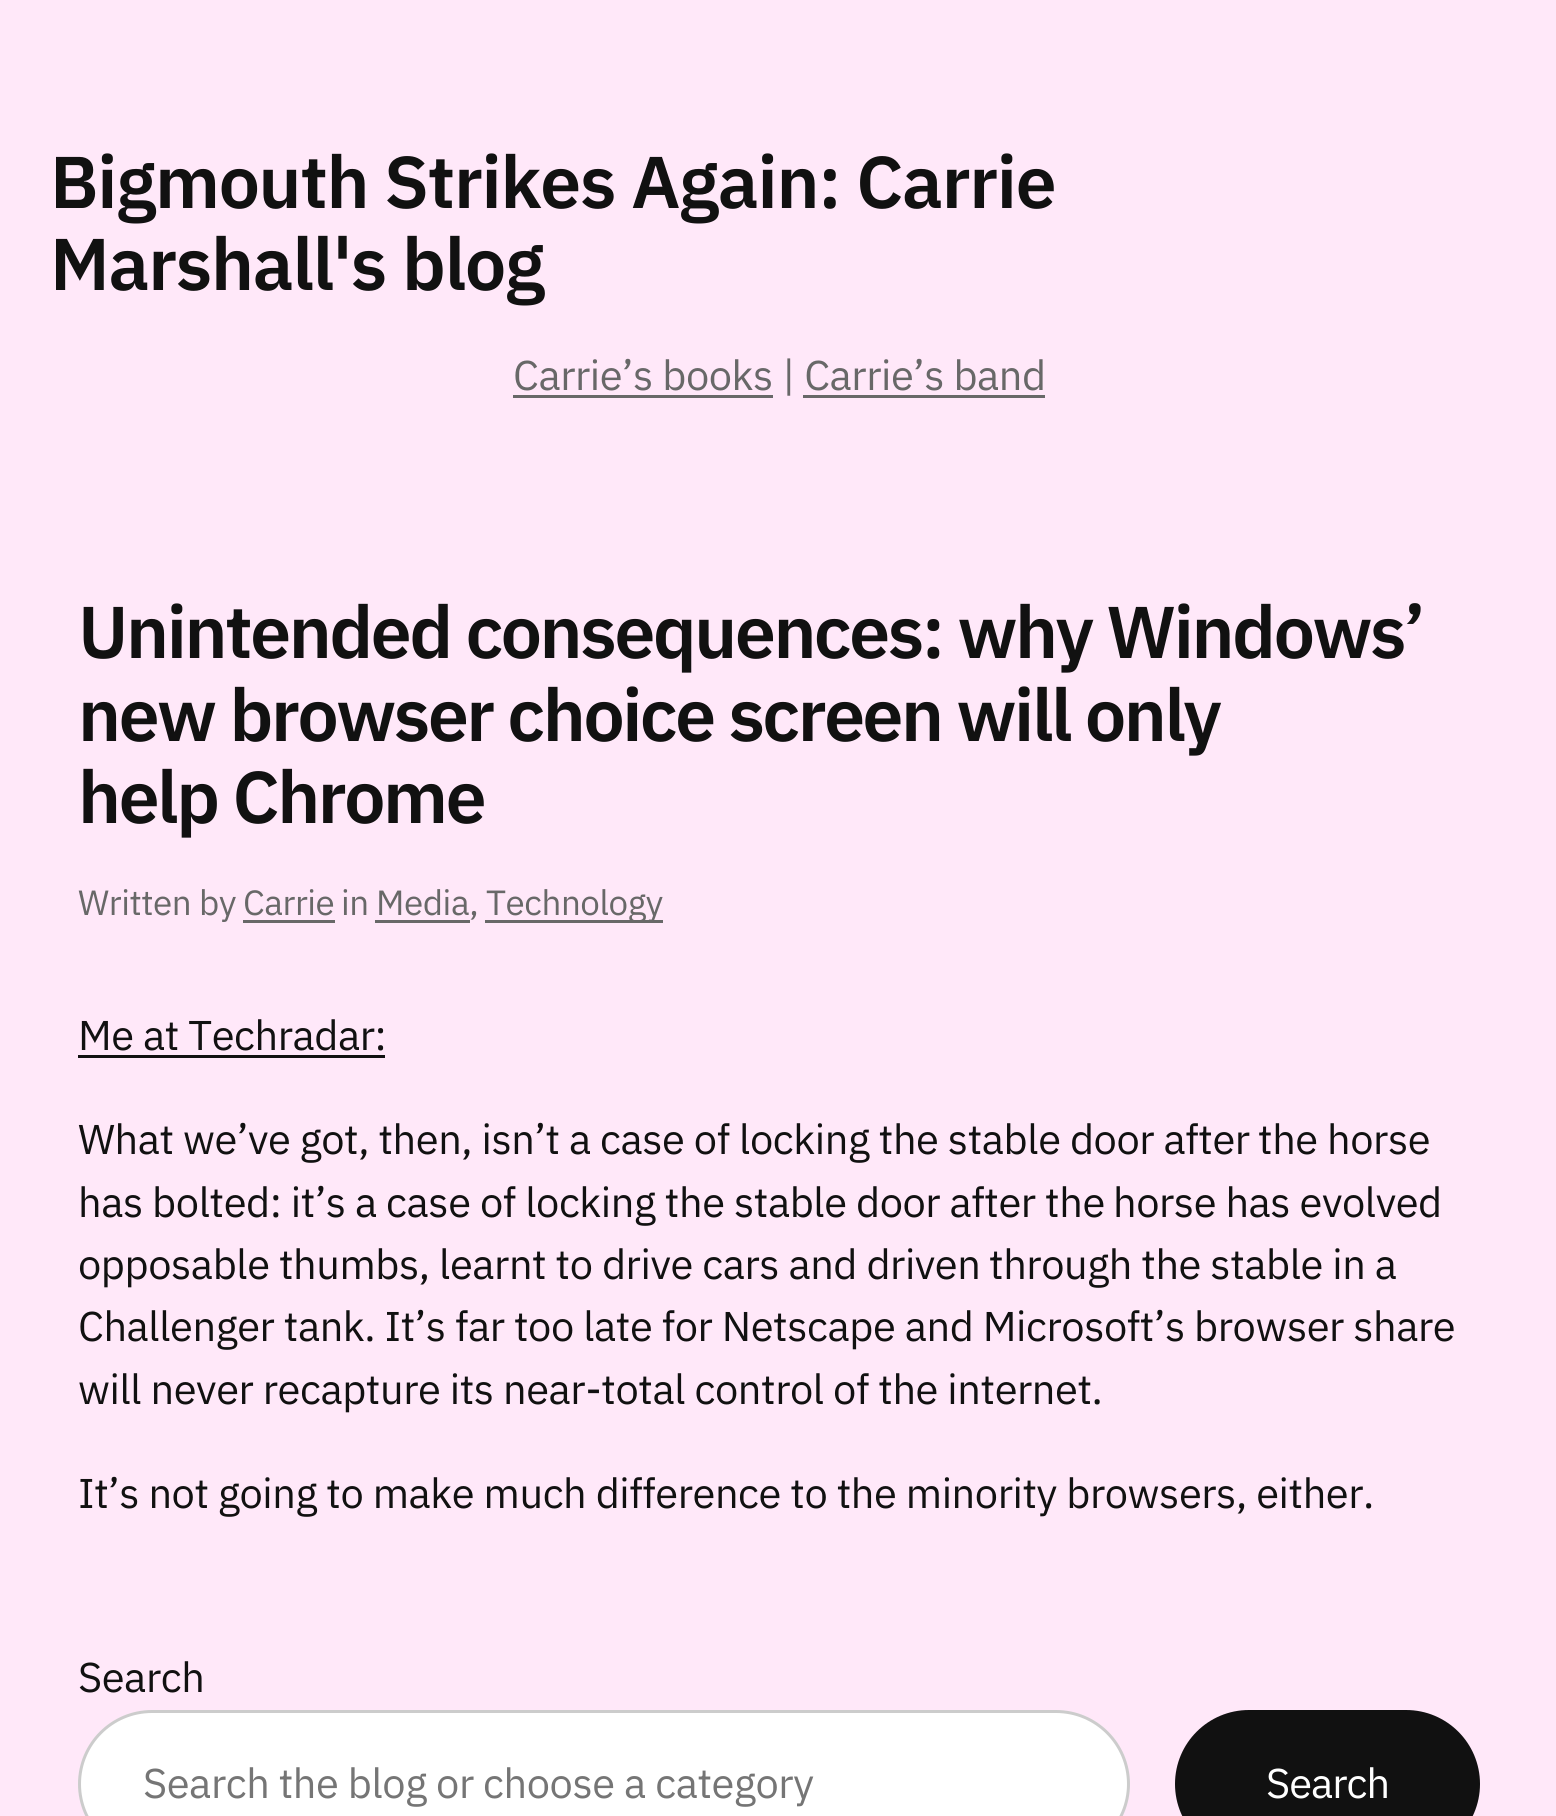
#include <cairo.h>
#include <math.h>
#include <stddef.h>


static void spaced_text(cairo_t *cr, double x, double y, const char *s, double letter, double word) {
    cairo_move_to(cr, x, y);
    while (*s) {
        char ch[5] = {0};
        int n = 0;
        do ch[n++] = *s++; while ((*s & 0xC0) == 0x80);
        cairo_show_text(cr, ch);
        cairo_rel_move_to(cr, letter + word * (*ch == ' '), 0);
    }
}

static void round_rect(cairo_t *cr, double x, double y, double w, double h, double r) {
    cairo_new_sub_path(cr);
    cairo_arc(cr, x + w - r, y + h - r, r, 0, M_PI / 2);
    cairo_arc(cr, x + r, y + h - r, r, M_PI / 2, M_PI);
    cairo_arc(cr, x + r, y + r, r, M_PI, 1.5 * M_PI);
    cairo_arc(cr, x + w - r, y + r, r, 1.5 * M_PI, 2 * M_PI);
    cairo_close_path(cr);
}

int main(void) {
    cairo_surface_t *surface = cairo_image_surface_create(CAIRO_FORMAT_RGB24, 1556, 1816);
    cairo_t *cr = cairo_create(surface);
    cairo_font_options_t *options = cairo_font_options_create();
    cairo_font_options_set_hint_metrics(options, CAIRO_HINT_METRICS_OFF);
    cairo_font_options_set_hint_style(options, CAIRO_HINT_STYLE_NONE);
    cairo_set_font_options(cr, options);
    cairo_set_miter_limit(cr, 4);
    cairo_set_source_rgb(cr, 1, 0.91, 0.976);
    cairo_paint(cr);
    cairo_select_font_face(cr, "IBM Plex Sans SemiBold", CAIRO_FONT_SLANT_NORMAL, CAIRO_FONT_WEIGHT_NORMAL);
    cairo_set_font_size(cr, 73.2);
    cairo_set_source_rgb(cr, 0.067, 0.067, 0.067);
    spaced_text(cr, 50, 208, "Bigmouth Strikes Again: Carrie", -1.25, 0);
    spaced_text(cr, 50, 290, "Marshall's blog", -1.25, 0);
    cairo_set_source_rgb(cr, 0.408, 0.408, 0.408);
    cairo_rectangle(cr, 513, 395, 260, 3);
    cairo_fill(cr);
    cairo_select_font_face(cr, "IBM Plex Sans", CAIRO_FONT_SLANT_NORMAL, CAIRO_FONT_WEIGHT_NORMAL);
    cairo_set_font_size(cr, 41.6);
    spaced_text(cr, 513, 390, "Carrie’s books | Carrie’s band", -0.45, 0);
    cairo_rectangle(cr, 803, 395, 242, 3);
    cairo_fill(cr);
    cairo_select_font_face(cr, "IBM Plex Sans SemiBold", CAIRO_FONT_SLANT_NORMAL, CAIRO_FONT_WEIGHT_NORMAL);
    cairo_set_font_size(cr, 73.2);
    cairo_set_source_rgb(cr, 0.067, 0.067, 0.067);
    spaced_text(cr, 78, 658, "Unintended consequences: why Windows’", -2.4, 0);
    spaced_text(cr, 78, 741, "new browser choice screen will only", -2.4, 0);
    spaced_text(cr, 78, 823, "help Chrome", -2.4, 0);
    cairo_select_font_face(cr, "IBM Plex Sans", CAIRO_FONT_SLANT_NORMAL, CAIRO_FONT_WEIGHT_NORMAL);
    cairo_set_font_size(cr, 35);
    cairo_set_source_rgb(cr, 0.408, 0.408, 0.408);
    spaced_text(cr, 78, 915, "Written by", -0.45, 0);
    spaced_text(cr, 243, 915, "Carrie", -0.45, 0);
    cairo_rectangle(cr, 243, 920, 92, 3);
    cairo_fill(cr);
    spaced_text(cr, 341, 915, "in", -0.45, 0);
    spaced_text(cr, 376, 915, "Media,", -0.45, 0);
    cairo_rectangle(cr, 375, 920, 95, 3);
    cairo_fill(cr);
    cairo_rectangle(cr, 485, 920, 178, 3);
    cairo_fill(cr);
    spaced_text(cr, 486, 915, "Technology", -0.45, 0);
    cairo_set_font_size(cr, 41.6);
    cairo_set_source_rgb(cr, 0.067, 0.067, 0.067);
    spaced_text(cr, 78, 1050, "Me at Techradar:", -0.45, 0);
    cairo_rectangle(cr, 78, 1055, 307, 3);
    cairo_fill(cr);
    spaced_text(cr, 78, 1154, "What we’ve got, then, isn’t a case of locking the stable door after", -0.45, 0);
    spaced_text(cr, 1258, 1154, "the horse", -0.45, 0);
    spaced_text(cr, 78, 1217, "has bolted: it’s a case of locking the stable door after the", -0.45, 0);
    spaced_text(cr, 1113, 1217, "horse has evolved", -0.45, 0);
    spaced_text(cr, 78, 1279, "opposable thumbs, learnt to drive cars and driven", -0.45, 0);
    spaced_text(cr, 989, 1279, "through the stable in a", -0.45, 0);
    spaced_text(cr, 78, 1341, "Challenger tank. It’s far too late for Netscape and Microsoft’s browser share", -0.45, 0);
    spaced_text(cr, 78, 1404, "will never recapture its near-total control of the internet.", -0.45, 0);
    spaced_text(cr, 78, 1508, "It’s not going to make much difference to the minority browsers, either.", -0.45, 0);
    spaced_text(cr, 78, 1692, "Search", -0.45, 0);
    cairo_set_source_rgb(cr, 1, 1, 1);
    round_rect(cr, 78, 1710, 1052, 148, 74);
    cairo_fill(cr);
    round_rect(cr, 79.5, 1711.5, 1049, 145, 72.5);
    cairo_set_source_rgba(cr, 0, 0, 0, 0.2);
    cairo_set_line_width(cr, 3);
    cairo_stroke(cr);
    cairo_set_source_rgb(cr, 0.459, 0.459, 0.459);
    spaced_text(cr, 143, 1798, "Search the blog or choose a category", -0.45, 0);
    cairo_set_source_rgb(cr, 0.067, 0.067, 0.067);
    round_rect(cr, 1175, 1710, 305, 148, 74);
    cairo_fill(cr);
    cairo_set_source_rgb(cr, 1, 1, 1);
    spaced_text(cr, 1266, 1798, "Search", -1, 0);
    cairo_surface_write_to_png(surface, "page.png");
    cairo_font_options_destroy(options);
    cairo_destroy(cr);
    cairo_surface_destroy(surface);
    return 0;
}
